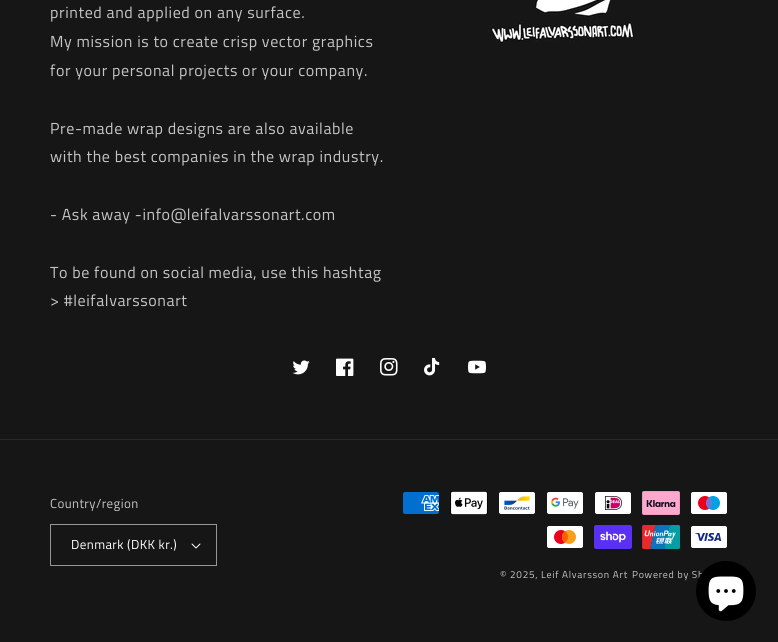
#include <cairo.h>
#include <math.h>
#include <stddef.h>


static void spaced_text(cairo_t *cr, double x, double y, const char *s, double letter, double word) {
    cairo_move_to(cr, x, y);
    while (*s) {
        char ch[5] = {0};
        int n = 0;
        do ch[n++] = *s++; while ((*s & 0xC0) == 0x80);
        cairo_show_text(cr, ch);
        cairo_rel_move_to(cr, letter + word * (*ch == ' '), 0);
    }
}

static void picture(cairo_t *cr, const char *path, double x, double y, double w, double h) {
    cairo_surface_t *image = cairo_image_surface_create_from_png(path);
    cairo_save(cr);
    cairo_set_source_surface(cr, image, x, y);
    cairo_rectangle(cr, x, y, w, h);
    cairo_fill(cr);
    cairo_restore(cr);
    cairo_surface_destroy(image);
}

int main(void) {
    cairo_surface_t *surface = cairo_image_surface_create(CAIRO_FORMAT_RGB24, 778, 642);
    cairo_t *cr = cairo_create(surface);
    cairo_font_options_t *options = cairo_font_options_create();
    cairo_font_options_set_hint_metrics(options, CAIRO_HINT_METRICS_OFF);
    cairo_font_options_set_hint_style(options, CAIRO_HINT_STYLE_NONE);
    cairo_set_font_options(cr, options);
    cairo_set_miter_limit(cr, 4);
    cairo_set_source_rgb(cr, 0.086, 0.086, 0.086);
    cairo_paint(cr);
    cairo_select_font_face(cr, "Titillium Web", CAIRO_FONT_SLANT_NORMAL, CAIRO_FONT_WEIGHT_NORMAL);
    cairo_set_font_size(cr, 16);
    cairo_set_source_rgb(cr, 0.773, 0.773, 0.773);
    spaced_text(cr, 50, 18, "printed and applied on any surface.", 0.6, 0);
    spaced_text(cr, 50, 47, "My mission is to create crisp vector graphics", 0.6, 0);
    spaced_text(cr, 50, 76, "for your personal projects or your company.", 0.6, 0);
    spaced_text(cr, 50, 134, "Pre-made wrap designs are also available", 0.6, 0);
    spaced_text(cr, 50, 162, "with the best companies in the wrap industry.", 0.6, 0);
    spaced_text(cr, 50, 220, "- Ask away -info@leifalvarssonart.com", 0.6, 0);
    spaced_text(cr, 50, 278, "To be found on social media, use this hashtag", 0.6, 0);
    spaced_text(cr, 50, 306, "> #leifalvarssonart", 0.6, 0);
    picture(cr, "img1.png", 488, 0, 146, 43);
    picture(cr, "img2.png", 292, 360, 18, 15);
    picture(cr, "img3.png", 336, 358, 18, 18);
    picture(cr, "img4.png", 380, 358, 18, 18);
    picture(cr, "img5.png", 424, 358, 16, 18);
    picture(cr, "img6.png", 468, 360, 18, 14);
    cairo_set_source_rgb(cr, 0.161, 0.161, 0.161);
    cairo_rectangle(cr, 0, 439, 778, 1);
    cairo_fill(cr);
    cairo_set_font_size(cr, 13);
    cairo_set_source_rgb(cr, 0.773, 0.773, 0.773);
    spaced_text(cr, 50, 508, "Country/region", 0.4, 0);
    picture(cr, "img7.png", 191, 543, 10, 6);
    cairo_rectangle(cr, 50.5, 524.5, 166, 41);
    cairo_set_source_rgb(cr, 0.588, 0.588, 0.588);
    cairo_set_line_width(cr, 1);
    cairo_stroke(cr);
    cairo_set_source_rgb(cr, 1, 1, 1);
    spaced_text(cr, 71, 549, "Denmark (DKK kr.)", 0.4, 0);
    picture(cr, "img8.png", 403, 492, 36, 22);
    picture(cr, "img9.png", 450, 491, 38, 24);
    picture(cr, "img10.png", 499, 492, 36, 22);
    picture(cr, "img11.png", 547, 492, 36, 22);
    picture(cr, "img12.png", 595, 492, 36, 22);
    picture(cr, "img13.png", 642, 491, 38, 24);
    picture(cr, "img14.png", 691, 492, 36, 22);
    picture(cr, "img15.png", 547, 526, 36, 22);
    picture(cr, "img16.png", 594, 525, 38, 24);
    picture(cr, "img17.png", 642, 525, 38, 24);
    picture(cr, "img18.png", 691, 526, 36, 22);
    cairo_set_font_size(cr, 10);
    cairo_set_source_rgb(cr, 0.773, 0.773, 0.773);
    spaced_text(cr, 500, 578, "© 2025, Leif Alvarsson Art", 0.7, 0);
    spaced_text(cr, 632, 578, "Powered by Sh", 0.7, 0);
    cairo_set_source_rgb(cr, 0, 0, 0);
    cairo_new_path(cr);
    cairo_arc(cr, 726, 591, 30, 0, 2 * M_PI);
    cairo_fill(cr);
    picture(cr, "img19.png", 708, 576, 36, 36);
    cairo_surface_write_to_png(surface, "page.png");
    cairo_font_options_destroy(options);
    cairo_destroy(cr);
    cairo_surface_destroy(surface);
    return 0;
}
